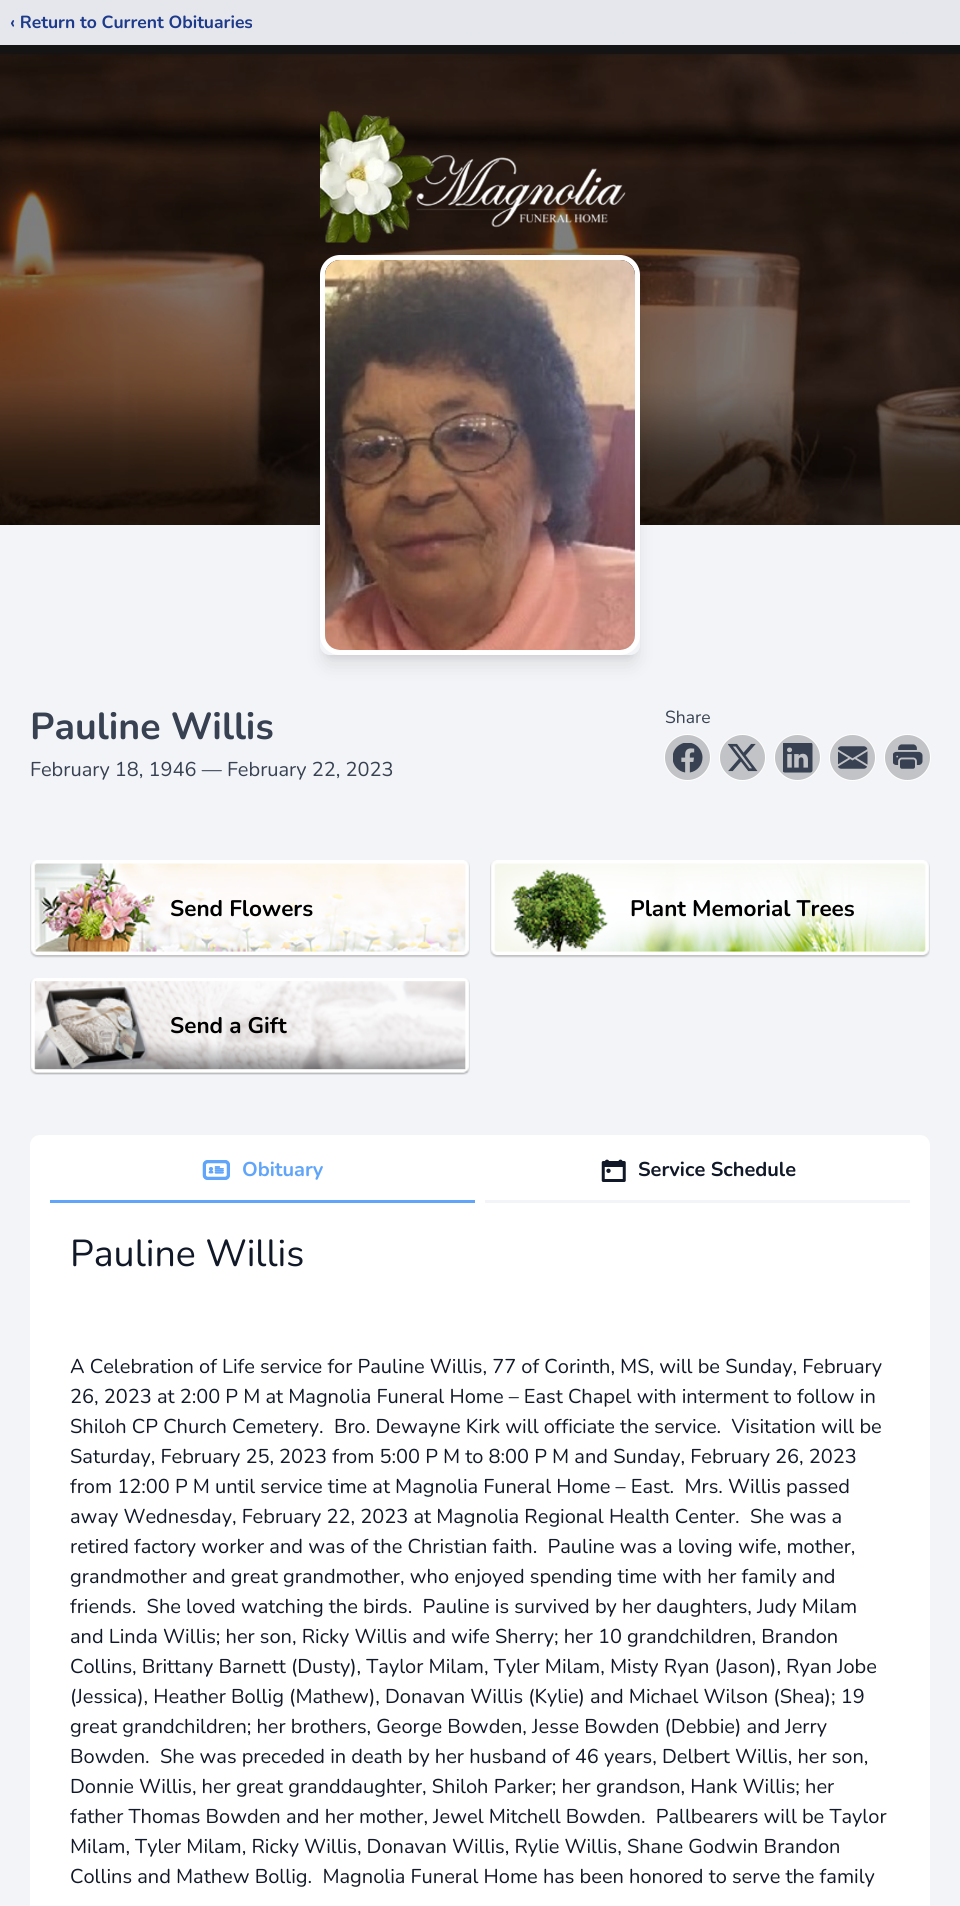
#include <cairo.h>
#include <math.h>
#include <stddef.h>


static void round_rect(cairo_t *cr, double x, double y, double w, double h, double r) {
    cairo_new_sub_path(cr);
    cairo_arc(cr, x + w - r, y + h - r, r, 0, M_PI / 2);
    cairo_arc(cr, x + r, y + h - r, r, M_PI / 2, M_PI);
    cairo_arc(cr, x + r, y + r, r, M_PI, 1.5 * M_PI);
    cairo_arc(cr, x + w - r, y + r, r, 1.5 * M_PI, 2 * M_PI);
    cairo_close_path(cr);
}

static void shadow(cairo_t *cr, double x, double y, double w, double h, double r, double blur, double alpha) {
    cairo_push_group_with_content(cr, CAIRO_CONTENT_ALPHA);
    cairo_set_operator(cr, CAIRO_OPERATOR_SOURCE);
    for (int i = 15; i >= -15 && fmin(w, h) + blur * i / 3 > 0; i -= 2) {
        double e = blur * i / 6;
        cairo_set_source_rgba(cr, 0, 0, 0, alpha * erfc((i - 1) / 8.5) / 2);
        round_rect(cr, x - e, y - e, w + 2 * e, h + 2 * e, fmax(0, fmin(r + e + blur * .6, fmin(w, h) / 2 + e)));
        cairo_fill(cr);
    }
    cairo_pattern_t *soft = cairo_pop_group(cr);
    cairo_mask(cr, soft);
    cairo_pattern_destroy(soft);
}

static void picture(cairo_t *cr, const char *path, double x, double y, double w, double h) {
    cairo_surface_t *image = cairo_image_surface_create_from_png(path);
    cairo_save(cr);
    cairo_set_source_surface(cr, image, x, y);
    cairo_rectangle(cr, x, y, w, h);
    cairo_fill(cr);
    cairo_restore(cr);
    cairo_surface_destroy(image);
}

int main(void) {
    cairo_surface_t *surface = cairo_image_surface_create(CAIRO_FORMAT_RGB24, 960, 1906);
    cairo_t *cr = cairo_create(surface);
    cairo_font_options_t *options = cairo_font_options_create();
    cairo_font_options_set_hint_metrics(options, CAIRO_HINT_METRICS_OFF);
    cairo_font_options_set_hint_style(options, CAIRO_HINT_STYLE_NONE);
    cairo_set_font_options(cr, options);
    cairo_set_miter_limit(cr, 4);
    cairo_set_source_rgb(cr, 0.953, 0.957, 0.965);
    cairo_paint(cr);
    cairo_set_source_rgb(cr, 0.898, 0.906, 0.922);
    cairo_rectangle(cr, 0, 0, 960, 45);
    cairo_fill(cr);
    cairo_select_font_face(cr, "Nunito", CAIRO_FONT_SLANT_NORMAL, CAIRO_FONT_WEIGHT_BOLD);
    cairo_set_font_size(cr, 17.5);
    cairo_set_source_rgb(cr, 0.118, 0.227, 0.541);
    cairo_move_to(cr, 10, 28);
    cairo_show_text(cr, "‹ Return to Current Obituaries");
    picture(cr, "img1.png", 0, 45, 960, 480);
    picture(cr, "img2.png", 320, 110, 306, 133);
    cairo_save(cr);
    cairo_set_fill_rule(cr, CAIRO_FILL_RULE_EVEN_ODD);
    cairo_new_path(cr);
    cairo_move_to(cr, 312, 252);
    cairo_line_to(cr, 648, 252);
    cairo_line_to(cr, 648, 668);
    cairo_line_to(cr, 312, 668);
    cairo_close_path(cr);
    cairo_move_to(cr, 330, 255);
    cairo_line_to(cr, 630, 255);
    cairo_curve_to(cr, 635.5, 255, 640, 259.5, 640, 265);
    cairo_line_to(cr, 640, 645);
    cairo_curve_to(cr, 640, 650.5, 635.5, 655, 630, 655);
    cairo_line_to(cr, 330, 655);
    cairo_curve_to(cr, 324.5, 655, 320, 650.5, 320, 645);
    cairo_line_to(cr, 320, 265);
    cairo_curve_to(cr, 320, 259.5, 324.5, 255, 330, 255);
    cairo_close_path(cr);
    cairo_clip(cr);
    cairo_set_source_rgb(cr, 0, 0, 0);
    shadow(cr, 325, 265, 310, 390, 5, 4, 0.1);
    cairo_restore(cr);
    cairo_save(cr);
    cairo_set_fill_rule(cr, CAIRO_FILL_RULE_EVEN_ODD);
    cairo_new_path(cr);
    cairo_move_to(cr, 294, 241);
    cairo_line_to(cr, 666, 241);
    cairo_line_to(cr, 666, 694);
    cairo_line_to(cr, 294, 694);
    cairo_close_path(cr);
    cairo_move_to(cr, 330, 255);
    cairo_line_to(cr, 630, 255);
    cairo_curve_to(cr, 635.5, 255, 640, 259.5, 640, 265);
    cairo_line_to(cr, 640, 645);
    cairo_curve_to(cr, 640, 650.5, 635.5, 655, 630, 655);
    cairo_line_to(cr, 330, 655);
    cairo_curve_to(cr, 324.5, 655, 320, 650.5, 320, 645);
    cairo_line_to(cr, 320, 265);
    cairo_curve_to(cr, 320, 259.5, 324.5, 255, 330, 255);
    cairo_close_path(cr);
    cairo_clip(cr);
    cairo_set_source_rgb(cr, 0, 0, 0);
    shadow(cr, 324, 271, 312, 393, 6, 9.5, 0.1);
    cairo_restore(cr);
    round_rect(cr, 322.5, 257.5, 315, 395, 17.5);
    cairo_set_source_rgb(cr, 1, 1, 1);
    cairo_set_line_width(cr, 5);
    cairo_stroke(cr);
    picture(cr, "img3.png", 325, 260, 310, 390);
    cairo_set_font_size(cr, 37.5);
    cairo_set_source_rgb(cr, 0.216, 0.255, 0.318);
    cairo_move_to(cr, 30, 739);
    cairo_show_text(cr, "Pauline Willis");
    cairo_select_font_face(cr, "Nunito", CAIRO_FONT_SLANT_NORMAL, CAIRO_FONT_WEIGHT_NORMAL);
    cairo_set_font_size(cr, 20);
    cairo_move_to(cr, 30, 776);
    cairo_show_text(cr, "February 18, 1946 — February 22, 2023");
    cairo_set_font_size(cr, 17.5);
    cairo_move_to(cr, 665, 723);
    cairo_show_text(cr, "Share");
    cairo_new_path(cr);
    cairo_arc(cr, 687.5, 757.5, 23, 0, 2 * M_PI);
    cairo_set_source_rgb(cr, 1, 1, 1);
    cairo_set_line_width(cr, 1);
    cairo_stroke(cr);
    cairo_set_source_rgba(cr, 0, 0, 0, 0.2);
    cairo_arc(cr, 687.5, 757.5, 22.5, 0, 2 * M_PI);
    cairo_fill(cr);
    picture(cr, "img4.png", 673, 743, 30, 30);
    cairo_arc(cr, 742.5, 757.5, 23, 0, 2 * M_PI);
    cairo_set_source_rgb(cr, 1, 1, 1);
    cairo_stroke(cr);
    cairo_set_source_rgba(cr, 0, 0, 0, 0.2);
    cairo_arc(cr, 742.5, 757.5, 22.5, 0, 2 * M_PI);
    cairo_fill(cr);
    picture(cr, "img5.png", 728, 743, 30, 29);
    cairo_arc(cr, 797.5, 757.5, 23, 0, 2 * M_PI);
    cairo_set_source_rgb(cr, 1, 1, 1);
    cairo_stroke(cr);
    cairo_set_source_rgba(cr, 0, 0, 0, 0.2);
    cairo_arc(cr, 797.5, 757.5, 22.5, 0, 2 * M_PI);
    cairo_fill(cr);
    picture(cr, "img6.png", 783, 743, 30, 30);
    cairo_arc(cr, 852.5, 757.5, 23, 0, 2 * M_PI);
    cairo_set_source_rgb(cr, 1, 1, 1);
    cairo_stroke(cr);
    cairo_set_source_rgba(cr, 0, 0, 0, 0.2);
    cairo_arc(cr, 852.5, 757.5, 22.5, 0, 2 * M_PI);
    cairo_fill(cr);
    picture(cr, "img7.png", 838, 746, 30, 23);
    cairo_arc(cr, 907.5, 757.5, 23, 0, 2 * M_PI);
    cairo_set_source_rgb(cr, 1, 1, 1);
    cairo_stroke(cr);
    cairo_set_source_rgba(cr, 0, 0, 0, 0.2);
    cairo_arc(cr, 907.5, 757.5, 22.5, 0, 2 * M_PI);
    cairo_fill(cr);
    picture(cr, "img8.png", 893, 744, 30, 25);
    picture(cr, "img9.png", 30, 860, 440, 98);
    cairo_select_font_face(cr, "Nunito", CAIRO_FONT_SLANT_NORMAL, CAIRO_FONT_WEIGHT_BOLD);
    cairo_set_font_size(cr, 22.5);
    cairo_set_source_rgb(cr, 0, 0, 0);
    cairo_move_to(cr, 170, 916);
    cairo_show_text(cr, "Send Flowers");
    picture(cr, "img10.png", 490, 860, 440, 98);
    cairo_move_to(cr, 630, 916);
    cairo_show_text(cr, "Plant Memorial Trees");
    picture(cr, "img11.png", 30, 978, 440, 97);
    cairo_move_to(cr, 170, 1033);
    cairo_show_text(cr, "Send a Gift");
    cairo_set_source_rgb(cr, 1, 1, 1);
    round_rect(cr, 30, 1135, 900, 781, 10);
    cairo_fill(cr);
    cairo_set_source_rgb(cr, 0.376, 0.647, 0.98);
    cairo_rectangle(cr, 50, 1200, 425, 3);
    cairo_fill(cr);
    picture(cr, "img12.png", 202, 1160, 28, 20);
    cairo_set_font_size(cr, 20);
    cairo_move_to(cr, 242, 1176);
    cairo_show_text(cr, "Obituary");
    cairo_set_source_rgb(cr, 0.953, 0.957, 0.965);
    cairo_rectangle(cr, 485, 1200, 425, 3);
    cairo_fill(cr);
    picture(cr, "img13.png", 601, 1159, 25, 23);
    cairo_set_source_rgb(cr, 0.067, 0.094, 0.153);
    cairo_move_to(cr, 638, 1176);
    cairo_show_text(cr, "Service Schedule");
    cairo_select_font_face(cr, "Nunito", CAIRO_FONT_SLANT_NORMAL, CAIRO_FONT_WEIGHT_NORMAL);
    cairo_set_font_size(cr, 37.5);
    cairo_move_to(cr, 70, 1266);
    cairo_show_text(cr, "Pauline Willis");
    cairo_set_font_size(cr, 20);
    cairo_move_to(cr, 70, 1373);
    cairo_show_text(cr, "A Celebration of Life service for Pauline Willis, 77 of Corinth, MS, will be Sunday, February");
    cairo_move_to(cr, 70, 1403);
    cairo_show_text(cr, "26, 2023 at 2:00 P M at Magnolia Funeral Home – East Chapel with interment to follow in");
    cairo_move_to(cr, 70, 1433);
    cairo_show_text(cr, "Shiloh CP Church Cemetery.  Bro. Dewayne Kirk will officiate the service.  Visitation will be");
    cairo_move_to(cr, 70, 1463);
    cairo_show_text(cr, "Saturday, February 25, 2023 from 5:00 P M to 8:00 P M and Sunday, February 26, 2023");
    cairo_move_to(cr, 70, 1493);
    cairo_show_text(cr, "from 12:00 P M until service time at Magnolia Funeral Home – East.  Mrs. Willis passed");
    cairo_move_to(cr, 70, 1523);
    cairo_show_text(cr, "away Wednesday, February 22, 2023 at Magnolia Regional Health Center.  She was a");
    cairo_move_to(cr, 70, 1553);
    cairo_show_text(cr, "retired factory worker and was of the Christian faith.  Pauline was a loving wife, mother,");
    cairo_move_to(cr, 70, 1583);
    cairo_show_text(cr, "grandmother and great grandmother, who enjoyed spending time with her family and");
    cairo_move_to(cr, 70, 1613);
    cairo_show_text(cr, "friends.  She loved watching the birds.  Pauline is survived by her daughters, Judy Milam");
    cairo_move_to(cr, 70, 1643);
    cairo_show_text(cr, "and Linda Willis; her son, Ricky Willis and wife Sherry; her 10 grandchildren, Brandon");
    cairo_move_to(cr, 70, 1673);
    cairo_show_text(cr, "Collins, Brittany Barnett (Dusty), Taylor Milam, Tyler Milam, Misty Ryan (Jason), Ryan Jobe");
    cairo_move_to(cr, 70, 1703);
    cairo_show_text(cr, "(Jessica), Heather Bollig (Mathew), Donavan Willis (Kylie) and Michael Wilson (Shea); 19");
    cairo_move_to(cr, 70, 1733);
    cairo_show_text(cr, "great grandchildren; her brothers, George Bowden, Jesse Bowden (Debbie) and Jerry");
    cairo_move_to(cr, 70, 1763);
    cairo_show_text(cr, "Bowden.  She was preceded in death by her husband of 46 years, Delbert Willis, her son,");
    cairo_move_to(cr, 70, 1793);
    cairo_show_text(cr, "Donnie Willis, her great granddaughter, Shiloh Parker; her grandson, Hank Willis; her");
    cairo_move_to(cr, 70, 1823);
    cairo_show_text(cr, "father Thomas Bowden and her mother, Jewel Mitchell Bowden.  Pallbearers will be Taylor");
    cairo_move_to(cr, 70, 1853);
    cairo_show_text(cr, "Milam, Tyler Milam, Ricky Willis, Donavan Willis, Rylie Willis, Shane Godwin Brandon");
    cairo_move_to(cr, 70, 1883);
    cairo_show_text(cr, "Collins and Mathew Bollig.  Magnolia Funeral Home has been honored to serve the family");
    cairo_surface_write_to_png(surface, "page.png");
    cairo_font_options_destroy(options);
    cairo_destroy(cr);
    cairo_surface_destroy(surface);
    return 0;
}
